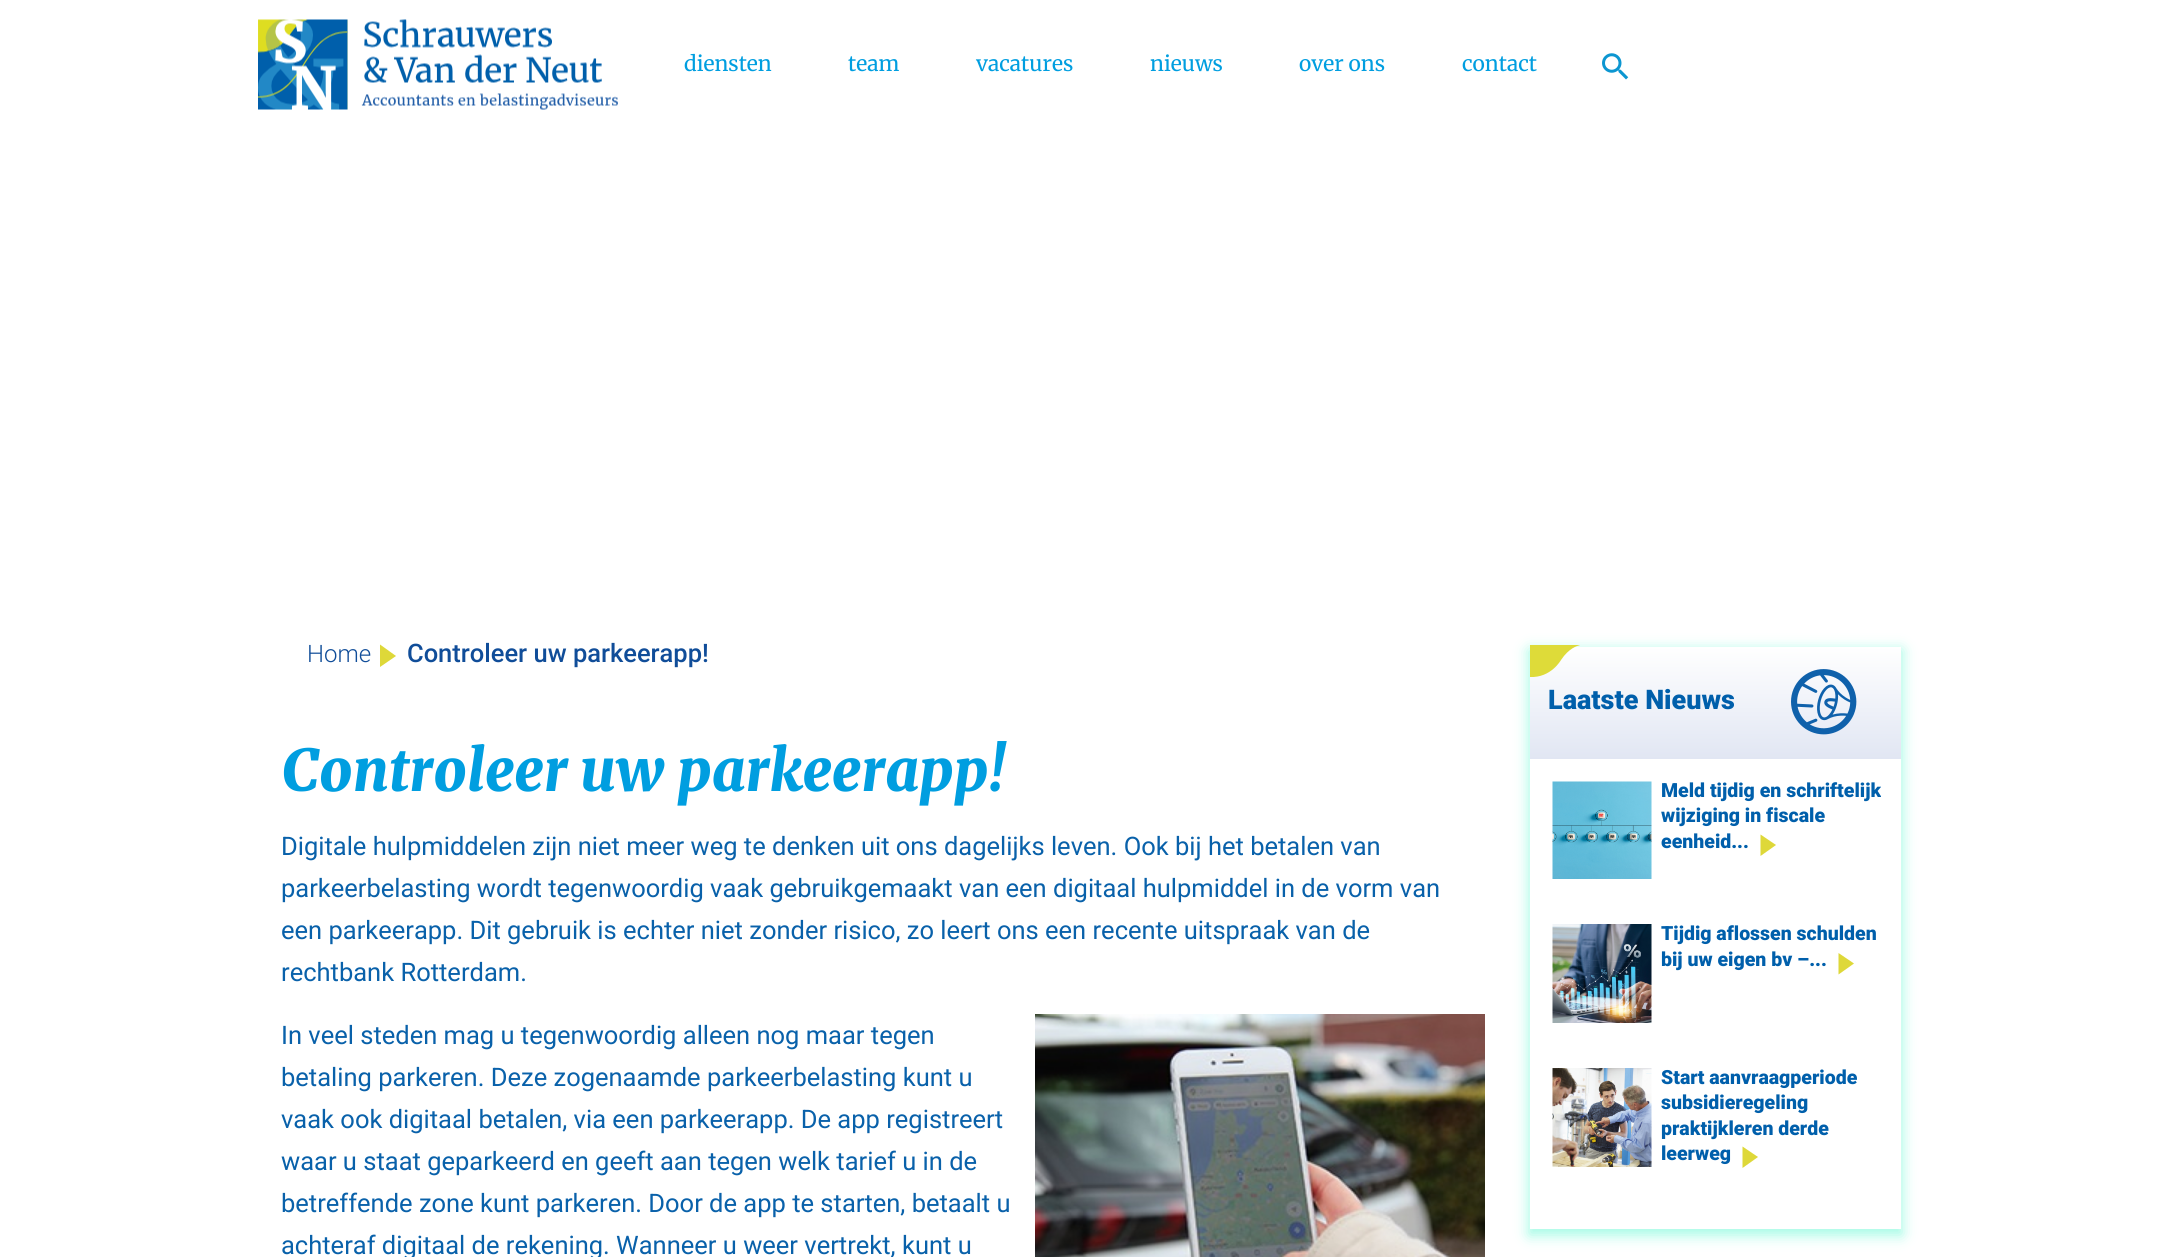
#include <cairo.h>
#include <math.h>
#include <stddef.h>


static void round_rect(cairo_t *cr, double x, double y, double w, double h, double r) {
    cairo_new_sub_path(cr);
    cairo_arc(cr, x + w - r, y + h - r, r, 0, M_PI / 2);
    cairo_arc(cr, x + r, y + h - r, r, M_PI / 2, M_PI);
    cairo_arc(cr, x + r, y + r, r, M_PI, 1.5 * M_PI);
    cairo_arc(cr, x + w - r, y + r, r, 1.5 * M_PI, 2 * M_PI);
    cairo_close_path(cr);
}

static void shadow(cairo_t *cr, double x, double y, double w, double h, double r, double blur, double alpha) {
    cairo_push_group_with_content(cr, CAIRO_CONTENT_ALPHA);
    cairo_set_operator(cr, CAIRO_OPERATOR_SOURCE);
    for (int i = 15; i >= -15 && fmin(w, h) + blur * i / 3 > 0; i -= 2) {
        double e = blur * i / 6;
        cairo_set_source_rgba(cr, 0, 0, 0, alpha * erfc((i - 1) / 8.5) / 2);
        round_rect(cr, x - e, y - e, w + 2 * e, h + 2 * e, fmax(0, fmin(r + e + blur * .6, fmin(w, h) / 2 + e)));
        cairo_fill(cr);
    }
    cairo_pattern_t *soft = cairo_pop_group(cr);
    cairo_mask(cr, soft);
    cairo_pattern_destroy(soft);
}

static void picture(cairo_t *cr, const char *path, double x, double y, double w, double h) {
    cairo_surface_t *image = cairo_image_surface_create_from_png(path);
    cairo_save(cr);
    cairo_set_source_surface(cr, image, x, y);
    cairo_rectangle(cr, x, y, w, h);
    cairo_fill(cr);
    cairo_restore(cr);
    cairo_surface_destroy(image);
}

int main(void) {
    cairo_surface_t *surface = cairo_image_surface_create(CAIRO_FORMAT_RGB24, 2180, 1257);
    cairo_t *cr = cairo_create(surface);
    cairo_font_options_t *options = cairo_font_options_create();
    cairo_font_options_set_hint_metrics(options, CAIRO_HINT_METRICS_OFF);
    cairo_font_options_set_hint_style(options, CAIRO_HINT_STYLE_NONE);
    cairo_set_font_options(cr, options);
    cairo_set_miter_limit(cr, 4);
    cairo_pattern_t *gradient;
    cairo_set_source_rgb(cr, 1, 1, 1);
    cairo_paint(cr);
    picture(cr, "img1.png", 258, 19, 360, 91);
    cairo_select_font_face(cr, "Merriweather", CAIRO_FONT_SLANT_NORMAL, CAIRO_FONT_WEIGHT_NORMAL);
    cairo_set_font_size(cr, 21);
    cairo_set_source_rgb(cr, 0, 0.62, 0.878);
    cairo_move_to(cr, 684, 71);
    cairo_show_text(cr, "diensten");
    cairo_move_to(cr, 848, 71);
    cairo_show_text(cr, "team");
    cairo_move_to(cr, 976, 71);
    cairo_show_text(cr, "vacatures");
    cairo_move_to(cr, 1150, 71);
    cairo_show_text(cr, "nieuws");
    cairo_move_to(cr, 1299, 71);
    cairo_show_text(cr, "over ons");
    cairo_move_to(cr, 1462, 71);
    cairo_show_text(cr, "contact");
    picture(cr, "img2.png", 1602, 53, 27, 27);
    cairo_select_font_face(cr, "Roboto Light", CAIRO_FONT_SLANT_NORMAL, CAIRO_FONT_WEIGHT_NORMAL);
    cairo_set_font_size(cr, 24);
    cairo_set_source_rgb(cr, 0.063, 0.302, 0.6);
    cairo_move_to(cr, 307, 662);
    cairo_show_text(cr, "Home");
    cairo_set_source_rgb(cr, 0.871, 0.847, 0.224);
    cairo_new_path(cr);
    cairo_move_to(cr, 380, 644.5);
    cairo_line_to(cr, 396, 656);
    cairo_line_to(cr, 380, 667);
    cairo_close_path(cr);
    cairo_fill(cr);
    cairo_select_font_face(cr, "Roboto Medium", CAIRO_FONT_SLANT_NORMAL, CAIRO_FONT_WEIGHT_NORMAL);
    cairo_set_font_size(cr, 25.5);
    cairo_set_source_rgb(cr, 0.063, 0.302, 0.6);
    cairo_move_to(cr, 407, 662);
    cairo_show_text(cr, "Controleer uw parkeerapp!");
    cairo_select_font_face(cr, "Merriweather Black", CAIRO_FONT_SLANT_ITALIC, CAIRO_FONT_WEIGHT_NORMAL);
    cairo_set_font_size(cr, 57.6);
    cairo_set_source_rgb(cr, 0, 0.62, 0.878);
    cairo_move_to(cr, 281, 791);
    cairo_show_text(cr, "Controleer uw parkeerapp!");
    cairo_select_font_face(cr, "Roboto", CAIRO_FONT_SLANT_NORMAL, CAIRO_FONT_WEIGHT_NORMAL);
    cairo_set_font_size(cr, 25.5);
    cairo_set_source_rgb(cr, 0.039, 0.38, 0.667);
    cairo_move_to(cr, 281, 855);
    cairo_show_text(cr, "Digitale hulpmiddelen zijn niet meer weg te denken uit ons dagelijks leven. Ook bij het betalen van");
    cairo_move_to(cr, 281, 897);
    cairo_show_text(cr, "parkeerbelasting wordt tegenwoordig vaak gebruikgemaakt van een digitaal hulpmiddel in de vorm van");
    cairo_move_to(cr, 281, 939);
    cairo_show_text(cr, "een parkeerapp. Dit gebruik is echter niet zonder risico, zo leert ons een recente uitspraak van de");
    cairo_move_to(cr, 281, 981);
    cairo_show_text(cr, "rechtbank Rotterdam.");
    cairo_move_to(cr, 281, 1044);
    cairo_show_text(cr, "In veel steden mag u tegenwoordig alleen nog maar tegen");
    cairo_move_to(cr, 281, 1086);
    cairo_show_text(cr, "betaling parkeren. Deze zogenaamde parkeerbelasting kunt u");
    cairo_move_to(cr, 281, 1128);
    cairo_show_text(cr, "vaak ook digitaal betalen, via een parkeerapp. De app registreert");
    cairo_move_to(cr, 281, 1170);
    cairo_show_text(cr, "waar u staat geparkeerd en geeft aan tegen welk tarief u in de");
    cairo_move_to(cr, 281, 1212);
    cairo_show_text(cr, "betreffende zone kunt parkeren. Door de app te starten, betaalt u");
    cairo_move_to(cr, 281, 1254);
    cairo_show_text(cr, "achteraf digitaal de rekening. Wanneer u weer vertrekt, kunt u");
    picture(cr, "img3.png", 1035, 1014, 450, 243);
    cairo_set_source_rgb(cr, 0.627, 0.984, 0.894);
    shadow(cr, 1529, 650, 373, 585, 0, 7, 1);
    cairo_set_source_rgb(cr, 1, 1, 1);
    cairo_rectangle(cr, 1530, 759, 371, 470);
    cairo_fill(cr);
    gradient = cairo_pattern_create_linear(1715, 647, 1715, 759);
    cairo_pattern_add_color_stop_rgba(gradient, 0, 1, 1, 1, 1);
    cairo_pattern_add_color_stop_rgba(gradient, 1, 0.882, 0.902, 0.953, 1);
    cairo_set_source(cr, gradient);
    cairo_pattern_destroy(gradient);
    cairo_rectangle(cr, 1530, 647, 371, 112);
    cairo_fill(cr);
    cairo_set_source_rgb(cr, 0.871, 0.859, 0.224);
    cairo_new_path(cr);
    cairo_move_to(cr, 1580, 645);
    cairo_curve_to(cr, 1577, 646, 1569, 648, 1561, 660);
    cairo_curve_to(cr, 1561, 660, 1551, 678, 1530, 677);
    cairo_line_to(cr, 1530, 645);
    cairo_close_path(cr);
    cairo_fill(cr);
    cairo_select_font_face(cr, "Roboto Black", CAIRO_FONT_SLANT_NORMAL, CAIRO_FONT_WEIGHT_NORMAL);
    cairo_set_font_size(cr, 27);
    cairo_set_source_rgb(cr, 0, 0.373, 0.671);
    cairo_move_to(cr, 1548, 709);
    cairo_show_text(cr, "Laatste Nieuws");
    picture(cr, "img4.png", 1791, 669, 66, 66);
    picture(cr, "img5.png", 1552, 781, 100, 98);
    cairo_set_font_size(cr, 19.5);
    cairo_move_to(cr, 1661, 797);
    cairo_show_text(cr, "Meld tijdig en schriftelijk");
    cairo_move_to(cr, 1661, 822);
    cairo_show_text(cr, "wijziging in fiscale");
    cairo_move_to(cr, 1661, 848);
    cairo_show_text(cr, "eenheid...");
    cairo_set_source_rgb(cr, 0.871, 0.847, 0.224);
    cairo_new_path(cr);
    cairo_move_to(cr, 1760.5, 834.5);
    cairo_line_to(cr, 1776, 845);
    cairo_line_to(cr, 1760.5, 856);
    cairo_close_path(cr);
    cairo_fill(cr);
    picture(cr, "img6.png", 1552, 924, 100, 99);
    cairo_set_source_rgb(cr, 0, 0.373, 0.671);
    cairo_move_to(cr, 1661, 940);
    cairo_show_text(cr, "Tijdig aflossen schulden");
    cairo_move_to(cr, 1661, 966);
    cairo_show_text(cr, "bij uw eigen bv –...");
    cairo_set_source_rgb(cr, 0.871, 0.847, 0.224);
    cairo_new_path(cr);
    cairo_move_to(cr, 1838.5, 953);
    cairo_line_to(cr, 1854, 963.5);
    cairo_line_to(cr, 1838.5, 974.5);
    cairo_close_path(cr);
    cairo_fill(cr);
    picture(cr, "img7.png", 1552, 1068, 100, 99);
    cairo_set_source_rgb(cr, 0, 0.373, 0.671);
    cairo_move_to(cr, 1661, 1084);
    cairo_show_text(cr, "Start aanvraagperiode");
    cairo_move_to(cr, 1661, 1109);
    cairo_show_text(cr, "subsidieregeling");
    cairo_move_to(cr, 1661, 1135);
    cairo_show_text(cr, "praktijkleren derde");
    cairo_move_to(cr, 1661, 1160);
    cairo_show_text(cr, "leerweg");
    cairo_set_source_rgb(cr, 0.871, 0.847, 0.224);
    cairo_new_path(cr);
    cairo_move_to(cr, 1742.5, 1146.5);
    cairo_line_to(cr, 1758, 1157);
    cairo_line_to(cr, 1742.5, 1168);
    cairo_close_path(cr);
    cairo_fill(cr);
    cairo_surface_write_to_png(surface, "page.png");
    cairo_font_options_destroy(options);
    cairo_destroy(cr);
    cairo_surface_destroy(surface);
    return 0;
}
